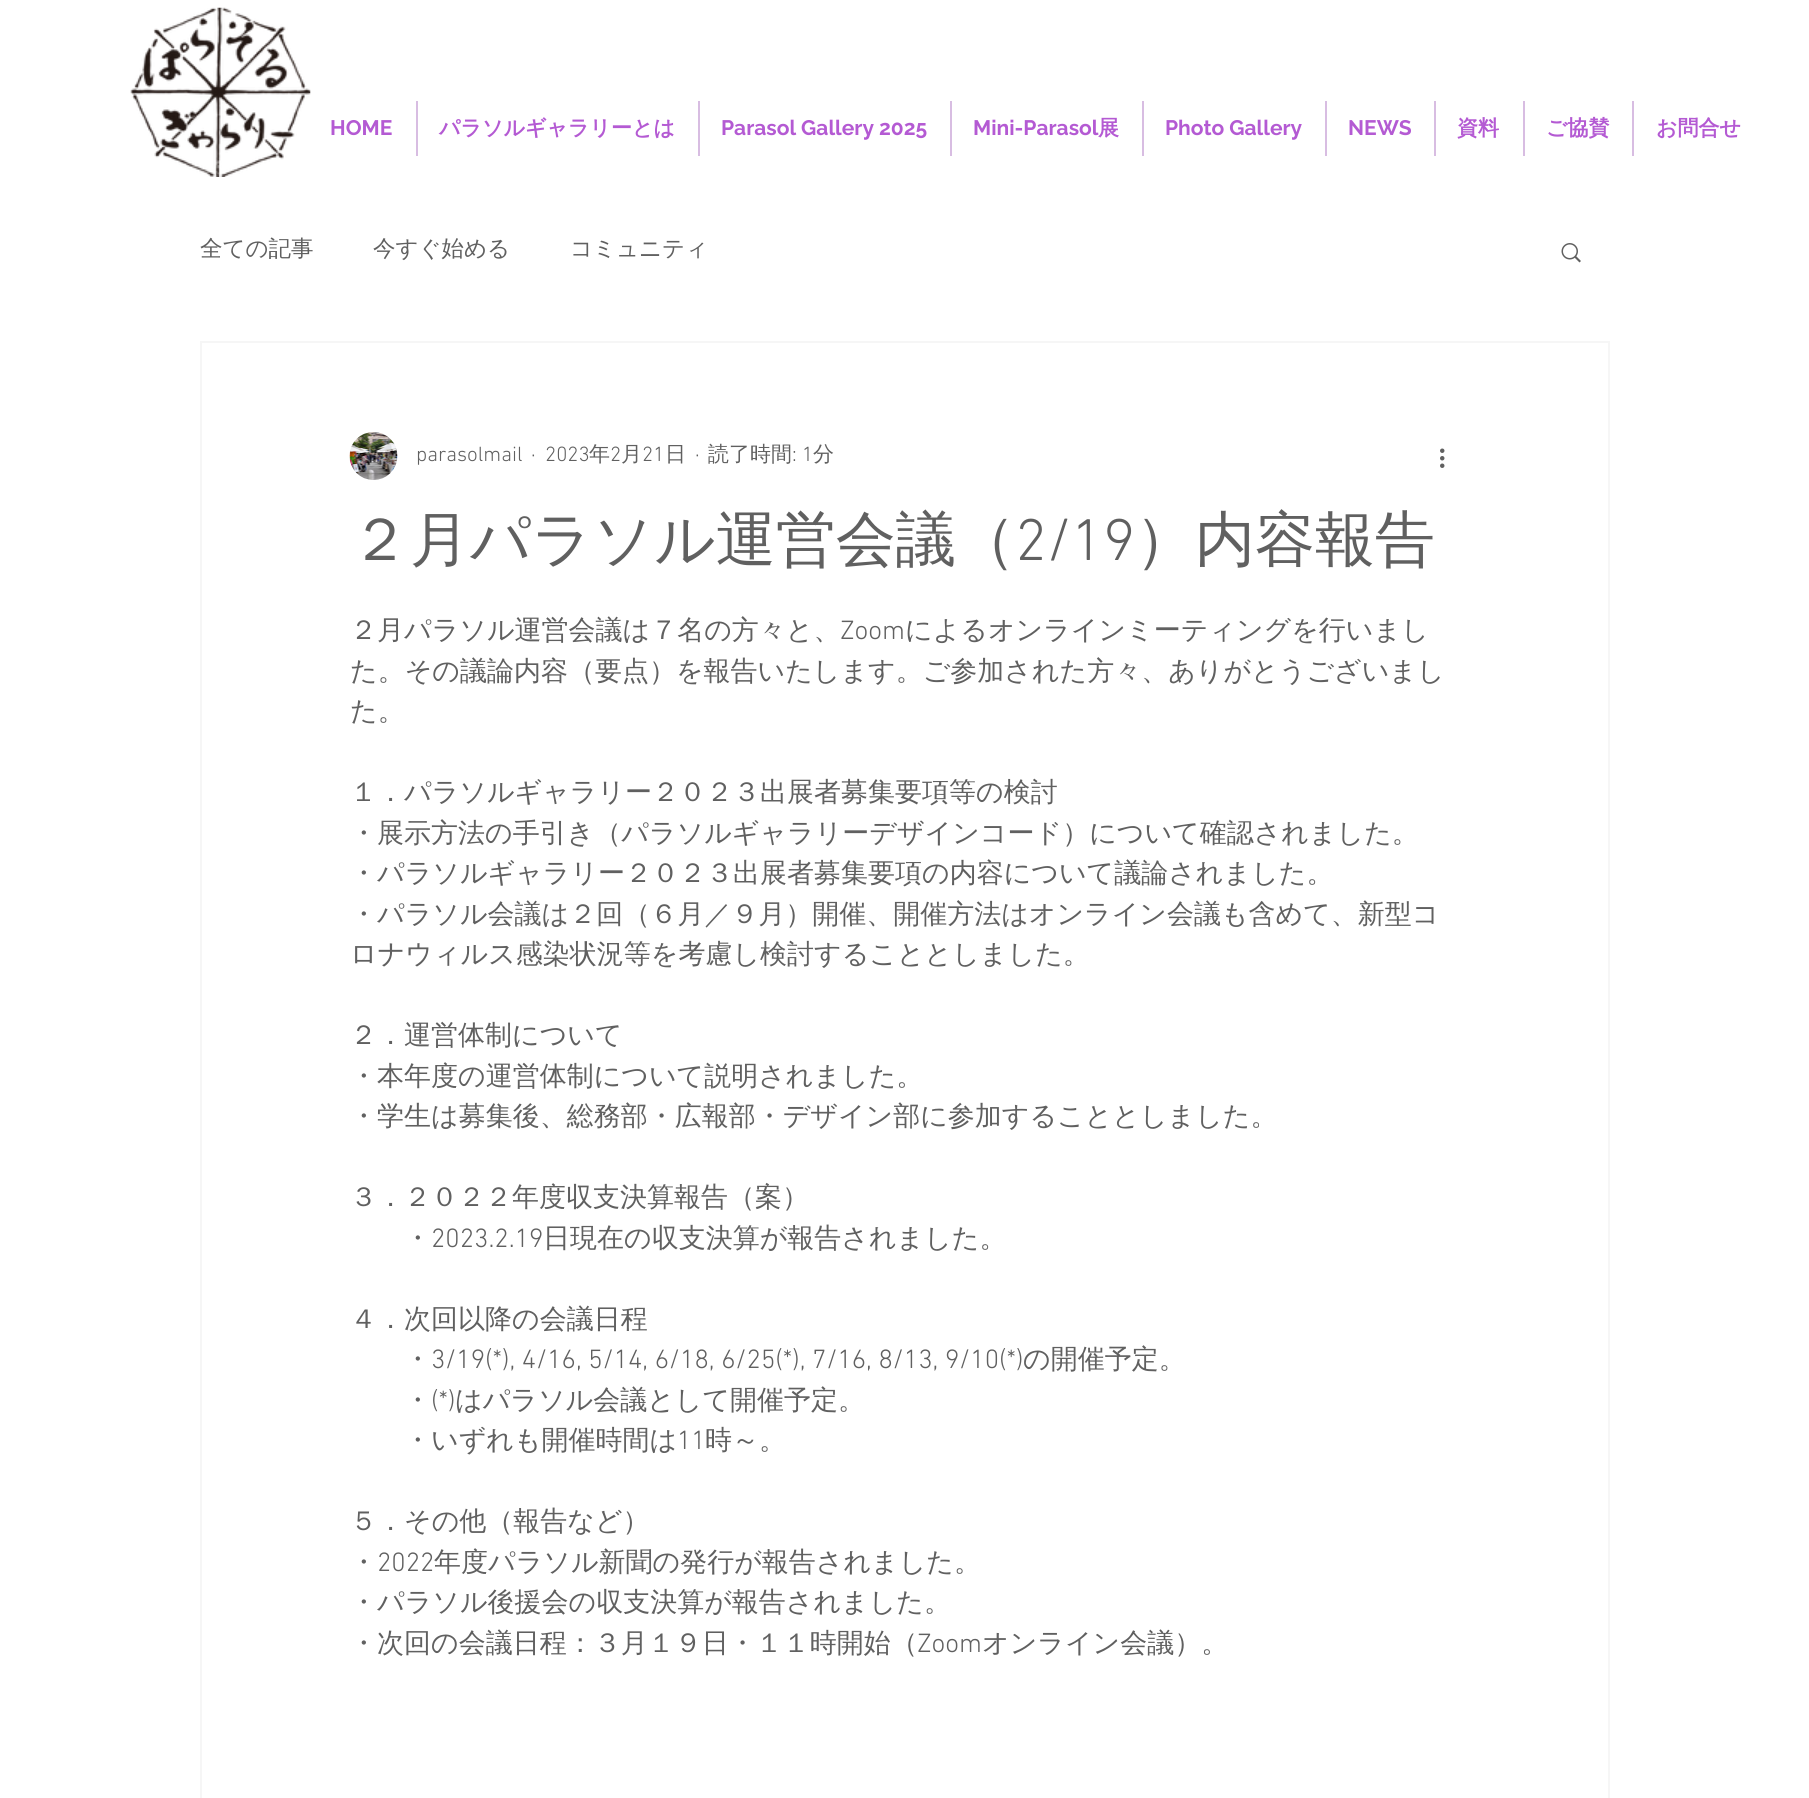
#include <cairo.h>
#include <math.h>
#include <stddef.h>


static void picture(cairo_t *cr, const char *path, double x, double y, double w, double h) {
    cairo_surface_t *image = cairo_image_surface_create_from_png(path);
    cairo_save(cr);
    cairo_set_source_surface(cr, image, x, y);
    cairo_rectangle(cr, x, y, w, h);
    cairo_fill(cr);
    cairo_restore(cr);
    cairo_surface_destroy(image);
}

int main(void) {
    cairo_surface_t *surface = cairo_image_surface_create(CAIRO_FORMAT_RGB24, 1809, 1798);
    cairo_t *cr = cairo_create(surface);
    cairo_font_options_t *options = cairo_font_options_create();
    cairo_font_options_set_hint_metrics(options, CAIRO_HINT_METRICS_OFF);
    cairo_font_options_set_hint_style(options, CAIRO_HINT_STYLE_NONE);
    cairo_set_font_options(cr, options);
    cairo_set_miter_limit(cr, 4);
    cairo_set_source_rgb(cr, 1, 1, 1);
    cairo_paint(cr);
    picture(cr, "img1.png", 130, 7, 181, 170);
    cairo_select_font_face(cr, "Raleway", CAIRO_FONT_SLANT_NORMAL, CAIRO_FONT_WEIGHT_BOLD);
    cairo_set_font_size(cr, 21);
    cairo_set_source_rgb(cr, 0.706, 0.353, 0.827);
    cairo_move_to(cr, 330, 135);
    cairo_show_text(cr, "HOME");
    cairo_set_source_rgb(cr, 0.847, 0.741, 0.886);
    cairo_rectangle(cr, 416, 101, 2, 55);
    cairo_fill(cr);
    cairo_select_font_face(cr, "WenQuanYi Zen Hei", CAIRO_FONT_SLANT_NORMAL, CAIRO_FONT_WEIGHT_BOLD);
    cairo_set_source_rgb(cr, 0.706, 0.353, 0.827);
    cairo_move_to(cr, 439, 135);
    cairo_show_text(cr, "パラソルギャラリーとは");
    cairo_set_source_rgb(cr, 0.847, 0.741, 0.886);
    cairo_rectangle(cr, 698, 101, 2, 55);
    cairo_fill(cr);
    cairo_select_font_face(cr, "Raleway", CAIRO_FONT_SLANT_NORMAL, CAIRO_FONT_WEIGHT_BOLD);
    cairo_set_source_rgb(cr, 0.706, 0.353, 0.827);
    cairo_move_to(cr, 721, 135);
    cairo_show_text(cr, "Parasol Gallery 2025");
    cairo_set_source_rgb(cr, 0.847, 0.741, 0.886);
    cairo_rectangle(cr, 950, 101, 2, 55);
    cairo_fill(cr);
    cairo_set_source_rgb(cr, 0.706, 0.353, 0.827);
    cairo_move_to(cr, 973, 135);
    cairo_show_text(cr, "Mini-Parasol");
    cairo_select_font_face(cr, "WenQuanYi Zen Hei", CAIRO_FONT_SLANT_NORMAL, CAIRO_FONT_WEIGHT_BOLD);
    cairo_move_to(cr, 1098, 135);
    cairo_show_text(cr, "展");
    cairo_set_source_rgb(cr, 0.847, 0.741, 0.886);
    cairo_rectangle(cr, 1142, 101, 2, 55);
    cairo_fill(cr);
    cairo_select_font_face(cr, "Raleway", CAIRO_FONT_SLANT_NORMAL, CAIRO_FONT_WEIGHT_BOLD);
    cairo_set_source_rgb(cr, 0.706, 0.353, 0.827);
    cairo_move_to(cr, 1165, 135);
    cairo_show_text(cr, "Photo Gallery");
    cairo_set_source_rgb(cr, 0.847, 0.741, 0.886);
    cairo_rectangle(cr, 1325, 101, 2, 55);
    cairo_fill(cr);
    cairo_set_source_rgb(cr, 0.706, 0.353, 0.827);
    cairo_move_to(cr, 1348, 135);
    cairo_show_text(cr, "NEWS");
    cairo_set_source_rgb(cr, 0.847, 0.741, 0.886);
    cairo_rectangle(cr, 1434, 101, 2, 55);
    cairo_fill(cr);
    cairo_select_font_face(cr, "WenQuanYi Zen Hei", CAIRO_FONT_SLANT_NORMAL, CAIRO_FONT_WEIGHT_BOLD);
    cairo_set_source_rgb(cr, 0.706, 0.353, 0.827);
    cairo_move_to(cr, 1457, 135);
    cairo_show_text(cr, "資料");
    cairo_set_source_rgb(cr, 0.847, 0.741, 0.886);
    cairo_rectangle(cr, 1523, 101, 2, 55);
    cairo_fill(cr);
    cairo_set_source_rgb(cr, 0.706, 0.353, 0.827);
    cairo_move_to(cr, 1546, 135);
    cairo_show_text(cr, "ご協賛");
    cairo_set_source_rgb(cr, 0.847, 0.741, 0.886);
    cairo_rectangle(cr, 1632, 101, 2, 55);
    cairo_fill(cr);
    cairo_set_source_rgb(cr, 0.706, 0.353, 0.827);
    cairo_move_to(cr, 1656, 135);
    cairo_show_text(cr, "お問合せ");
    cairo_select_font_face(cr, "WenQuanYi Zen Hei Medium", CAIRO_FONT_SLANT_NORMAL, CAIRO_FONT_WEIGHT_NORMAL);
    cairo_set_font_size(cr, 22.5);
    cairo_set_source_rgb(cr, 0.376, 0.376, 0.376);
    cairo_move_to(cr, 200, 256);
    cairo_show_text(cr, "全ての記事");
    cairo_move_to(cr, 373, 256);
    cairo_show_text(cr, "今すぐ始める");
    cairo_move_to(cr, 570, 256);
    cairo_show_text(cr, "コミュニティ");
    picture(cr, "img2.png", 1561, 243, 20, 20);
    cairo_rectangle(cr, 201, 342, 1408, 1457);
    cairo_set_source_rgb(cr, 0.961, 0.961, 0.961);
    cairo_stroke(cr);
    picture(cr, "img3.png", 349, 432, 49, 48);
    cairo_select_font_face(cr, "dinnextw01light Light", CAIRO_FONT_SLANT_NORMAL, CAIRO_FONT_WEIGHT_NORMAL);
    cairo_set_font_size(cr, 21);
    cairo_set_source_rgb(cr, 0.376, 0.376, 0.376);
    cairo_move_to(cr, 416, 461);
    cairo_show_text(cr, "parasolmail");
    cairo_move_to(cr, 531, 461);
    cairo_show_text(cr, "·");
    cairo_move_to(cr, 545, 461);
    cairo_show_text(cr, "2023");
    cairo_select_font_face(cr, "WenQuanYi Zen Hei Medium", CAIRO_FONT_SLANT_NORMAL, CAIRO_FONT_WEIGHT_NORMAL);
    cairo_move_to(cr, 589, 461);
    cairo_show_text(cr, "年");
    cairo_select_font_face(cr, "dinnextw01light Light", CAIRO_FONT_SLANT_NORMAL, CAIRO_FONT_WEIGHT_NORMAL);
    cairo_move_to(cr, 610, 461);
    cairo_show_text(cr, "2");
    cairo_select_font_face(cr, "WenQuanYi Zen Hei Medium", CAIRO_FONT_SLANT_NORMAL, CAIRO_FONT_WEIGHT_NORMAL);
    cairo_move_to(cr, 621, 461);
    cairo_show_text(cr, "月");
    cairo_select_font_face(cr, "dinnextw01light Light", CAIRO_FONT_SLANT_NORMAL, CAIRO_FONT_WEIGHT_NORMAL);
    cairo_move_to(cr, 642, 461);
    cairo_show_text(cr, "21");
    cairo_select_font_face(cr, "WenQuanYi Zen Hei Medium", CAIRO_FONT_SLANT_NORMAL, CAIRO_FONT_WEIGHT_NORMAL);
    cairo_move_to(cr, 665, 461);
    cairo_show_text(cr, "日");
    cairo_select_font_face(cr, "dinnextw01light Light", CAIRO_FONT_SLANT_NORMAL, CAIRO_FONT_WEIGHT_NORMAL);
    cairo_move_to(cr, 695, 461);
    cairo_show_text(cr, "·");
    cairo_select_font_face(cr, "WenQuanYi Zen Hei Medium", CAIRO_FONT_SLANT_NORMAL, CAIRO_FONT_WEIGHT_NORMAL);
    cairo_move_to(cr, 708, 461);
    cairo_show_text(cr, "読了時間");
    cairo_select_font_face(cr, "dinnextw01light Light", CAIRO_FONT_SLANT_NORMAL, CAIRO_FONT_WEIGHT_NORMAL);
    cairo_move_to(cr, 792, 461);
    cairo_show_text(cr, ": 1");
    cairo_select_font_face(cr, "WenQuanYi Zen Hei Medium", CAIRO_FONT_SLANT_NORMAL, CAIRO_FONT_WEIGHT_NORMAL);
    cairo_move_to(cr, 813, 461);
    cairo_show_text(cr, "分");
    picture(cr, "img4.png", 1440, 448, 5, 20);
    cairo_set_font_size(cr, 60);
    cairo_move_to(cr, 350, 560);
    cairo_show_text(cr, "２月パラソル運営会議（");
    cairo_select_font_face(cr, "dinnextw01light Light", CAIRO_FONT_SLANT_NORMAL, CAIRO_FONT_WEIGHT_NORMAL);
    cairo_move_to(cr, 1015, 560);
    cairo_show_text(cr, "2/19");
    cairo_select_font_face(cr, "WenQuanYi Zen Hei Medium", CAIRO_FONT_SLANT_NORMAL, CAIRO_FONT_WEIGHT_NORMAL);
    cairo_move_to(cr, 1135, 560);
    cairo_show_text(cr, "）内容報告");
    cairo_set_font_size(cr, 27);
    cairo_move_to(cr, 350, 639);
    cairo_show_text(cr, "２月パラソル運営会議は７名の方々と、");
    cairo_select_font_face(cr, "dinnextw01light Light", CAIRO_FONT_SLANT_NORMAL, CAIRO_FONT_WEIGHT_NORMAL);
    cairo_move_to(cr, 840, 639);
    cairo_show_text(cr, "Zoom");
    cairo_select_font_face(cr, "WenQuanYi Zen Hei Medium", CAIRO_FONT_SLANT_NORMAL, CAIRO_FONT_WEIGHT_NORMAL);
    cairo_move_to(cr, 905, 639);
    cairo_show_text(cr, "によるオンラインミーティングを行いまし");
    cairo_move_to(cr, 350, 680);
    cairo_show_text(cr, "た。その議論内容（要点）を報告いたします。ご参加された方々、ありがとうございまし");
    cairo_move_to(cr, 350, 720);
    cairo_show_text(cr, "た。");
    cairo_move_to(cr, 350, 801);
    cairo_show_text(cr, "１．パラソルギャラリー２０２３出展者募集要項等の検討");
    cairo_move_to(cr, 350, 842);
    cairo_show_text(cr, "・展示方法の手引き（パラソルギャラリーデザインコード）について確認されました。");
    cairo_move_to(cr, 350, 882);
    cairo_show_text(cr, "・パラソルギャラリー２０２３出展者募集要項の内容について議論されました。");
    cairo_move_to(cr, 350, 923);
    cairo_show_text(cr, "・パラソル会議は２回（６月／９月）開催、開催方法はオンライン会議も含めて、新型コ");
    cairo_move_to(cr, 350, 963);
    cairo_show_text(cr, "ロナウィルス感染状況等を考慮し検討することとしました。");
    cairo_move_to(cr, 350, 1044);
    cairo_show_text(cr, "２．運営体制について");
    cairo_move_to(cr, 350, 1085);
    cairo_show_text(cr, "・本年度の運営体制について説明されました。");
    cairo_move_to(cr, 350, 1125);
    cairo_show_text(cr, "・学生は募集後、総務部・広報部・デザイン部に参加することとしました。");
    cairo_move_to(cr, 350, 1206);
    cairo_show_text(cr, "３．２０２２年度収支決算報告（案）");
    cairo_move_to(cr, 404, 1247);
    cairo_show_text(cr, "・");
    cairo_select_font_face(cr, "dinnextw01light Light", CAIRO_FONT_SLANT_NORMAL, CAIRO_FONT_WEIGHT_NORMAL);
    cairo_move_to(cr, 431, 1247);
    cairo_show_text(cr, "2023.2.19");
    cairo_select_font_face(cr, "WenQuanYi Zen Hei Medium", CAIRO_FONT_SLANT_NORMAL, CAIRO_FONT_WEIGHT_NORMAL);
    cairo_move_to(cr, 543, 1247);
    cairo_show_text(cr, "日現在の収支決算が報告されました。");
    cairo_move_to(cr, 350, 1328);
    cairo_show_text(cr, "４．次回以降の会議日程");
    cairo_move_to(cr, 404, 1368);
    cairo_show_text(cr, "・");
    cairo_select_font_face(cr, "dinnextw01light Light", CAIRO_FONT_SLANT_NORMAL, CAIRO_FONT_WEIGHT_NORMAL);
    cairo_move_to(cr, 431, 1368);
    cairo_show_text(cr, "3/19(*), 4/16, 5/14, 6/18, 6/25(*), 7/16, 8/13, 9/10(*)");
    cairo_select_font_face(cr, "WenQuanYi Zen Hei Medium", CAIRO_FONT_SLANT_NORMAL, CAIRO_FONT_WEIGHT_NORMAL);
    cairo_move_to(cr, 1023, 1368);
    cairo_show_text(cr, "の開催予定。");
    cairo_move_to(cr, 404, 1409);
    cairo_show_text(cr, "・");
    cairo_select_font_face(cr, "dinnextw01light Light", CAIRO_FONT_SLANT_NORMAL, CAIRO_FONT_WEIGHT_NORMAL);
    cairo_move_to(cr, 431, 1409);
    cairo_show_text(cr, "(*)");
    cairo_select_font_face(cr, "WenQuanYi Zen Hei Medium", CAIRO_FONT_SLANT_NORMAL, CAIRO_FONT_WEIGHT_NORMAL);
    cairo_move_to(cr, 455, 1409);
    cairo_show_text(cr, "はパラソル会議として開催予定。");
    cairo_move_to(cr, 404, 1449);
    cairo_show_text(cr, "・いずれも開催時間は");
    cairo_select_font_face(cr, "dinnextw01light Light", CAIRO_FONT_SLANT_NORMAL, CAIRO_FONT_WEIGHT_NORMAL);
    cairo_move_to(cr, 677, 1449);
    cairo_show_text(cr, "11");
    cairo_select_font_face(cr, "WenQuanYi Zen Hei Medium", CAIRO_FONT_SLANT_NORMAL, CAIRO_FONT_WEIGHT_NORMAL);
    cairo_move_to(cr, 705, 1449);
    cairo_show_text(cr, "時～。");
    cairo_move_to(cr, 350, 1530);
    cairo_show_text(cr, "５．その他（報告など）");
    cairo_move_to(cr, 350, 1571);
    cairo_show_text(cr, "・");
    cairo_select_font_face(cr, "dinnextw01light Light", CAIRO_FONT_SLANT_NORMAL, CAIRO_FONT_WEIGHT_NORMAL);
    cairo_move_to(cr, 377, 1571);
    cairo_show_text(cr, "2022");
    cairo_select_font_face(cr, "WenQuanYi Zen Hei Medium", CAIRO_FONT_SLANT_NORMAL, CAIRO_FONT_WEIGHT_NORMAL);
    cairo_move_to(cr, 434, 1571);
    cairo_show_text(cr, "年度パラソル新聞の発行が報告されました。");
    cairo_move_to(cr, 350, 1611);
    cairo_show_text(cr, "・パラソル後援会の収支決算が報告されました。");
    cairo_move_to(cr, 350, 1652);
    cairo_show_text(cr, "・次回の会議日程：３月１９日・１１時開始（");
    cairo_select_font_face(cr, "dinnextw01light Light", CAIRO_FONT_SLANT_NORMAL, CAIRO_FONT_WEIGHT_NORMAL);
    cairo_move_to(cr, 917, 1652);
    cairo_show_text(cr, "Zoom");
    cairo_select_font_face(cr, "WenQuanYi Zen Hei Medium", CAIRO_FONT_SLANT_NORMAL, CAIRO_FONT_WEIGHT_NORMAL);
    cairo_move_to(cr, 982, 1652);
    cairo_show_text(cr, "オンライン会議）。");
    cairo_surface_write_to_png(surface, "page.png");
    cairo_font_options_destroy(options);
    cairo_destroy(cr);
    cairo_surface_destroy(surface);
    return 0;
}
